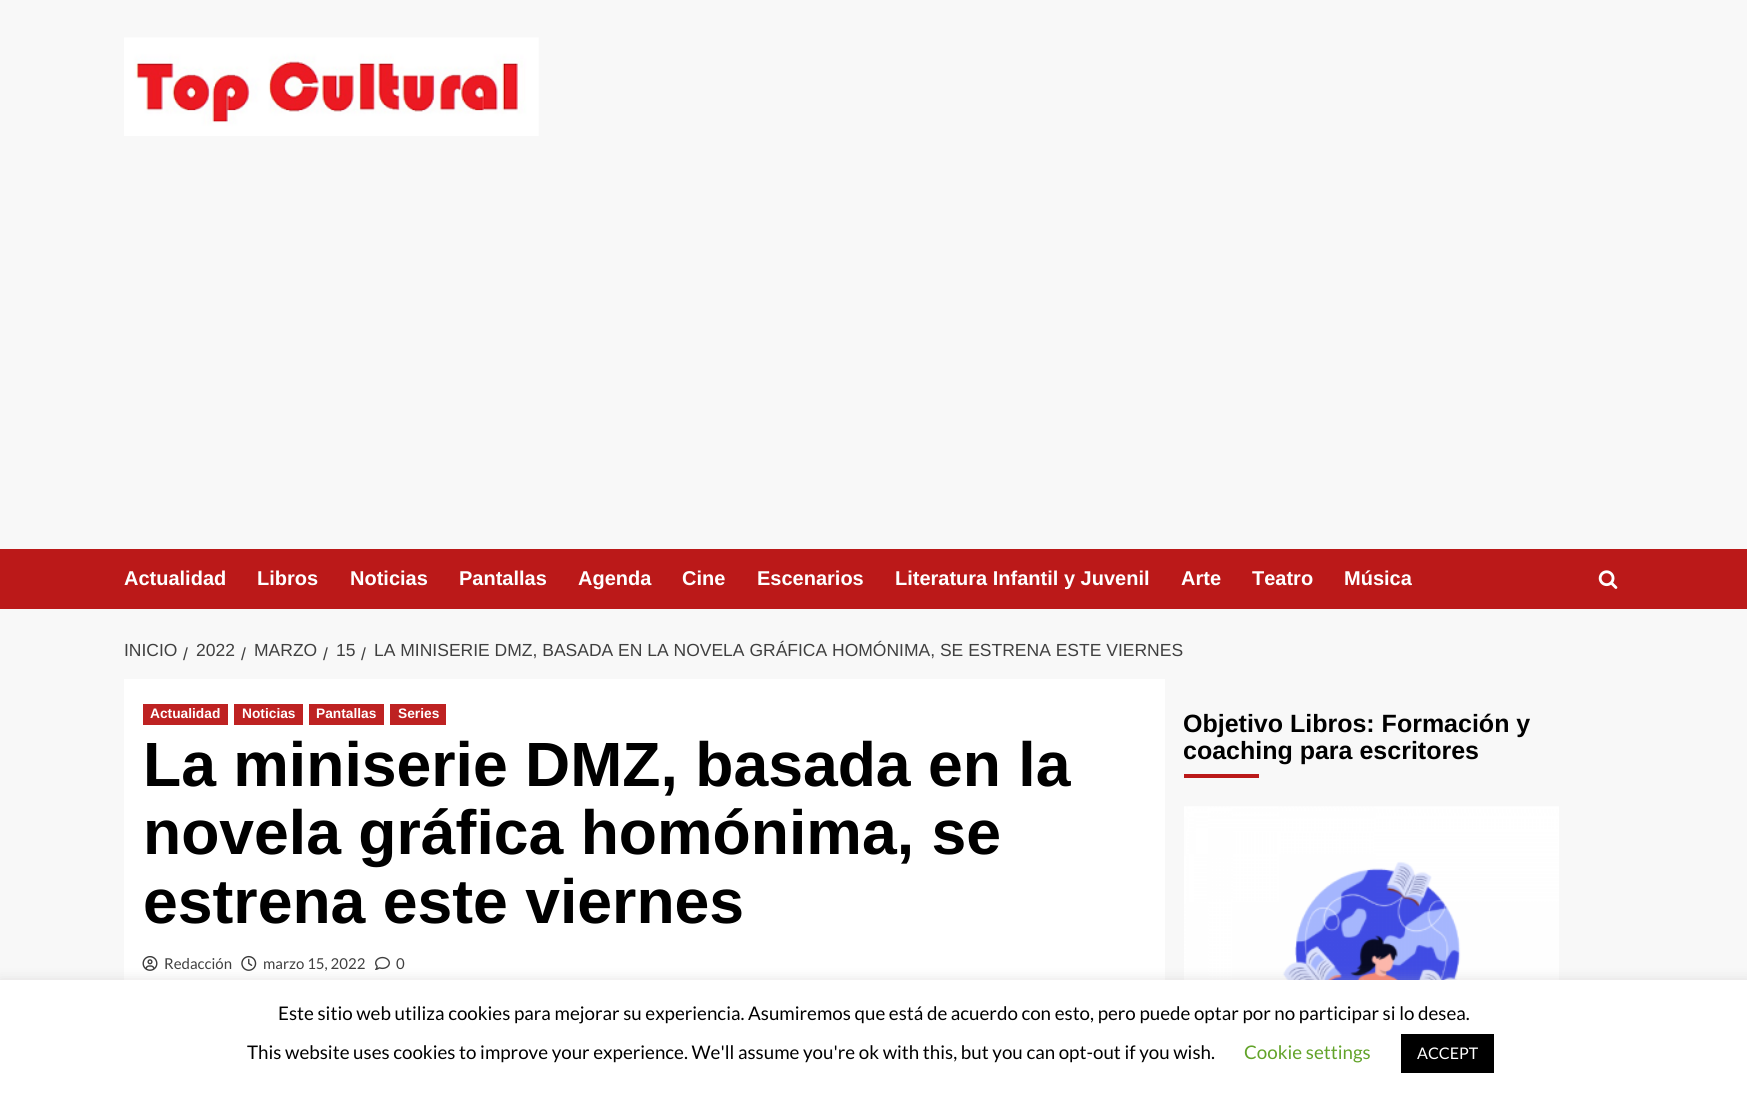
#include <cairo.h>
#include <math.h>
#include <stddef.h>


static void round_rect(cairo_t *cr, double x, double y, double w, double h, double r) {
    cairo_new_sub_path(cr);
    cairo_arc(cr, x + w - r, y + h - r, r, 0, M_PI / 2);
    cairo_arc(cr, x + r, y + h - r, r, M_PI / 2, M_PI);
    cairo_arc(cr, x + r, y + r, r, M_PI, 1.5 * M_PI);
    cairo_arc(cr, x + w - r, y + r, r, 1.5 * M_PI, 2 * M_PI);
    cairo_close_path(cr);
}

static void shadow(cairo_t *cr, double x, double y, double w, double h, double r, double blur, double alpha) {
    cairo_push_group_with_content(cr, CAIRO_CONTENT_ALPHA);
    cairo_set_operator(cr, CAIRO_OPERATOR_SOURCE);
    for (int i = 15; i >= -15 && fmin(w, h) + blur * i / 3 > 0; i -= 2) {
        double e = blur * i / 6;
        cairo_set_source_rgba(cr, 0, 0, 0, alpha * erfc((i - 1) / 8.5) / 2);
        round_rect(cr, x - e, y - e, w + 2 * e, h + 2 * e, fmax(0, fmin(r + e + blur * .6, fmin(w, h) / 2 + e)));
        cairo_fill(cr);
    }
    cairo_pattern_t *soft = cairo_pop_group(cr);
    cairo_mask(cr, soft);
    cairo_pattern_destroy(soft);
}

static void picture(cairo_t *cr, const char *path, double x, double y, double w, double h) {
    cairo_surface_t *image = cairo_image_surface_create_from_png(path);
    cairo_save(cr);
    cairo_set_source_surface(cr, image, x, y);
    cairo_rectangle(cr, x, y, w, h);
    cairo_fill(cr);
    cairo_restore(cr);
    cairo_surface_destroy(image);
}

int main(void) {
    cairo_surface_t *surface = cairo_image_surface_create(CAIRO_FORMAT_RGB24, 1747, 1093);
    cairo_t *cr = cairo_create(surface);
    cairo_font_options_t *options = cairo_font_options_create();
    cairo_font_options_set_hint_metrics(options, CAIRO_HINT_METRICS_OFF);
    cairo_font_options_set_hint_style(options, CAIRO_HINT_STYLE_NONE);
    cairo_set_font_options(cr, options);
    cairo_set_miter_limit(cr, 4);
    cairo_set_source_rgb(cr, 0.969, 0.969, 0.969);
    cairo_paint(cr);
    picture(cr, "img1.png", 124, 37, 415, 99);
    cairo_set_source_rgb(cr, 0.733, 0.098, 0.098);
    cairo_rectangle(cr, 0, 549, 1747, 60);
    cairo_fill(cr);
    cairo_select_font_face(cr, "Liberation Sans", CAIRO_FONT_SLANT_NORMAL, CAIRO_FONT_WEIGHT_BOLD);
    cairo_set_font_size(cr, 20);
    cairo_set_source_rgb(cr, 1, 1, 1);
    cairo_move_to(cr, 124, 585);
    cairo_show_text(cr, "Actualidad");
    cairo_move_to(cr, 257, 585);
    cairo_show_text(cr, "Libros");
    cairo_move_to(cr, 350, 585);
    cairo_show_text(cr, "Noticias");
    cairo_move_to(cr, 459, 585);
    cairo_show_text(cr, "Pantallas");
    cairo_move_to(cr, 578, 585);
    cairo_show_text(cr, "Agenda");
    cairo_move_to(cr, 682, 585);
    cairo_show_text(cr, "Cine");
    cairo_move_to(cr, 757, 585);
    cairo_show_text(cr, "Escenarios");
    cairo_move_to(cr, 895, 585);
    cairo_show_text(cr, "Literatura Infantil y Juvenil");
    cairo_move_to(cr, 1181, 585);
    cairo_show_text(cr, "Arte");
    cairo_move_to(cr, 1252, 585);
    cairo_show_text(cr, "Teatro");
    cairo_move_to(cr, 1344, 585);
    cairo_show_text(cr, "Música");
    picture(cr, "img2.png", 1598, 570, 20, 19);
    cairo_select_font_face(cr, "Liberation Sans", CAIRO_FONT_SLANT_NORMAL, CAIRO_FONT_WEIGHT_NORMAL);
    cairo_set_font_size(cr, 17.5);
    cairo_set_source_rgb(cr, 0.251, 0.251, 0.251);
    cairo_move_to(cr, 124, 656);
    cairo_show_text(cr, "INICIO");
    cairo_move_to(cr, 183, 660);
    cairo_show_text(cr, "/");
    cairo_move_to(cr, 196, 656);
    cairo_show_text(cr, "2022");
    cairo_move_to(cr, 241, 660);
    cairo_show_text(cr, "/");
    cairo_move_to(cr, 254, 656);
    cairo_show_text(cr, "MARZO");
    cairo_move_to(cr, 323, 660);
    cairo_show_text(cr, "/");
    cairo_move_to(cr, 336, 656);
    cairo_show_text(cr, "15");
    cairo_move_to(cr, 361, 660);
    cairo_show_text(cr, "/");
    cairo_move_to(cr, 374, 656);
    cairo_show_text(cr, "LA MINISERIE DMZ, BASADA EN LA NOVELA GRÁFICA HOMÓNIMA, SE ESTRENA ESTE VIERNES");
    cairo_set_source_rgb(cr, 1, 1, 1);
    cairo_rectangle(cr, 124, 679, 1041, 301);
    cairo_fill(cr);
    cairo_set_source_rgb(cr, 0.745, 0.133, 0.133);
    cairo_rectangle(cr, 143, 704, 85, 21);
    cairo_fill(cr);
    cairo_select_font_face(cr, "Liberation Sans", CAIRO_FONT_SLANT_NORMAL, CAIRO_FONT_WEIGHT_BOLD);
    cairo_set_font_size(cr, 13.75);
    cairo_set_source_rgb(cr, 1, 1, 1);
    cairo_move_to(cr, 150, 718);
    cairo_show_text(cr, "Actualidad");
    cairo_set_source_rgb(cr, 0.745, 0.133, 0.133);
    cairo_rectangle(cr, 234, 704, 69, 21);
    cairo_fill(cr);
    cairo_set_source_rgb(cr, 1, 1, 1);
    cairo_move_to(cr, 242, 718);
    cairo_show_text(cr, "Noticias");
    cairo_set_source_rgb(cr, 0.745, 0.133, 0.133);
    cairo_rectangle(cr, 309, 704, 75, 21);
    cairo_fill(cr);
    cairo_set_source_rgb(cr, 1, 1, 1);
    cairo_move_to(cr, 316, 718);
    cairo_show_text(cr, "Pantallas");
    cairo_set_source_rgb(cr, 0.745, 0.133, 0.133);
    cairo_rectangle(cr, 390, 704, 56, 21);
    cairo_fill(cr);
    cairo_set_source_rgb(cr, 1, 1, 1);
    cairo_move_to(cr, 398, 718);
    cairo_show_text(cr, "Series");
    cairo_set_font_size(cr, 62.5);
    cairo_set_source_rgb(cr, 0, 0, 0);
    cairo_move_to(cr, 143, 786);
    cairo_show_text(cr, "La miniserie DMZ, basada en la");
    cairo_move_to(cr, 143, 854);
    cairo_show_text(cr, "novela gráfica homónima, se");
    cairo_move_to(cr, 143, 923);
    cairo_show_text(cr, "estrena este viernes");
    picture(cr, "img3.png", 142, 956, 16, 15);
    cairo_select_font_face(cr, "Lato", CAIRO_FONT_SLANT_NORMAL, CAIRO_FONT_WEIGHT_NORMAL);
    cairo_set_font_size(cr, 15);
    cairo_set_source_rgb(cr, 0.251, 0.251, 0.251);
    cairo_move_to(cr, 164, 969);
    cairo_show_text(cr, "Redacción");
    picture(cr, "img4.png", 241, 955, 16, 16);
    cairo_move_to(cr, 263, 969);
    cairo_show_text(cr, "marzo 15, 2022");
    picture(cr, "img5.png", 375, 956, 15, 14);
    cairo_move_to(cr, 396, 969);
    cairo_show_text(cr, "0");
    cairo_select_font_face(cr, "Liberation Sans", CAIRO_FONT_SLANT_NORMAL, CAIRO_FONT_WEIGHT_BOLD);
    cairo_set_font_size(cr, 25);
    cairo_set_source_rgb(cr, 0, 0, 0);
    cairo_move_to(cr, 1183, 732);
    cairo_show_text(cr, "Objetivo Libros: Formación y");
    cairo_move_to(cr, 1183, 759);
    cairo_show_text(cr, "coaching para escritores");
    cairo_set_source_rgb(cr, 0.733, 0.098, 0.098);
    cairo_rectangle(cr, 1184, 774, 75, 4);
    cairo_fill(cr);
    picture(cr, "img6.png", 1184, 806, 375, 174);
    cairo_set_source_rgb(cr, 0.675, 0.671, 0.671);
    shadow(cr, 0, 979, 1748, 114, 0, 6, 0.3);
    cairo_set_source_rgb(cr, 1, 1, 1);
    cairo_rectangle(cr, 0, 980, 1747, 113);
    cairo_fill(cr);
    cairo_select_font_face(cr, "Lato", CAIRO_FONT_SLANT_NORMAL, CAIRO_FONT_WEIGHT_NORMAL);
    cairo_set_font_size(cr, 18.75);
    cairo_set_source_rgb(cr, 0, 0, 0);
    cairo_move_to(cr, 278, 1020);
    cairo_show_text(cr, "Este sitio web utiliza cookies para mejorar su experiencia. Asumiremos que está de acuerdo con esto, pero puede optar por no participar si lo desea.");
    cairo_move_to(cr, 247, 1059);
    cairo_show_text(cr, "This website uses cookies to improve your experience. We'll assume you're ok with this, but you can opt-out if you wish.");
    cairo_set_source_rgb(cr, 0.384, 0.639, 0.161);
    cairo_move_to(cr, 1244, 1059);
    cairo_show_text(cr, "Cookie settings");
    cairo_set_source_rgb(cr, 0, 0, 0);
    cairo_rectangle(cr, 1401, 1034, 93, 39);
    cairo_fill(cr);
    cairo_set_font_size(cr, 16);
    cairo_set_source_rgb(cr, 1, 1, 1);
    cairo_move_to(cr, 1417, 1059);
    cairo_show_text(cr, "ACCEPT");
    cairo_surface_write_to_png(surface, "page.png");
    cairo_font_options_destroy(options);
    cairo_destroy(cr);
    cairo_surface_destroy(surface);
    return 0;
}
